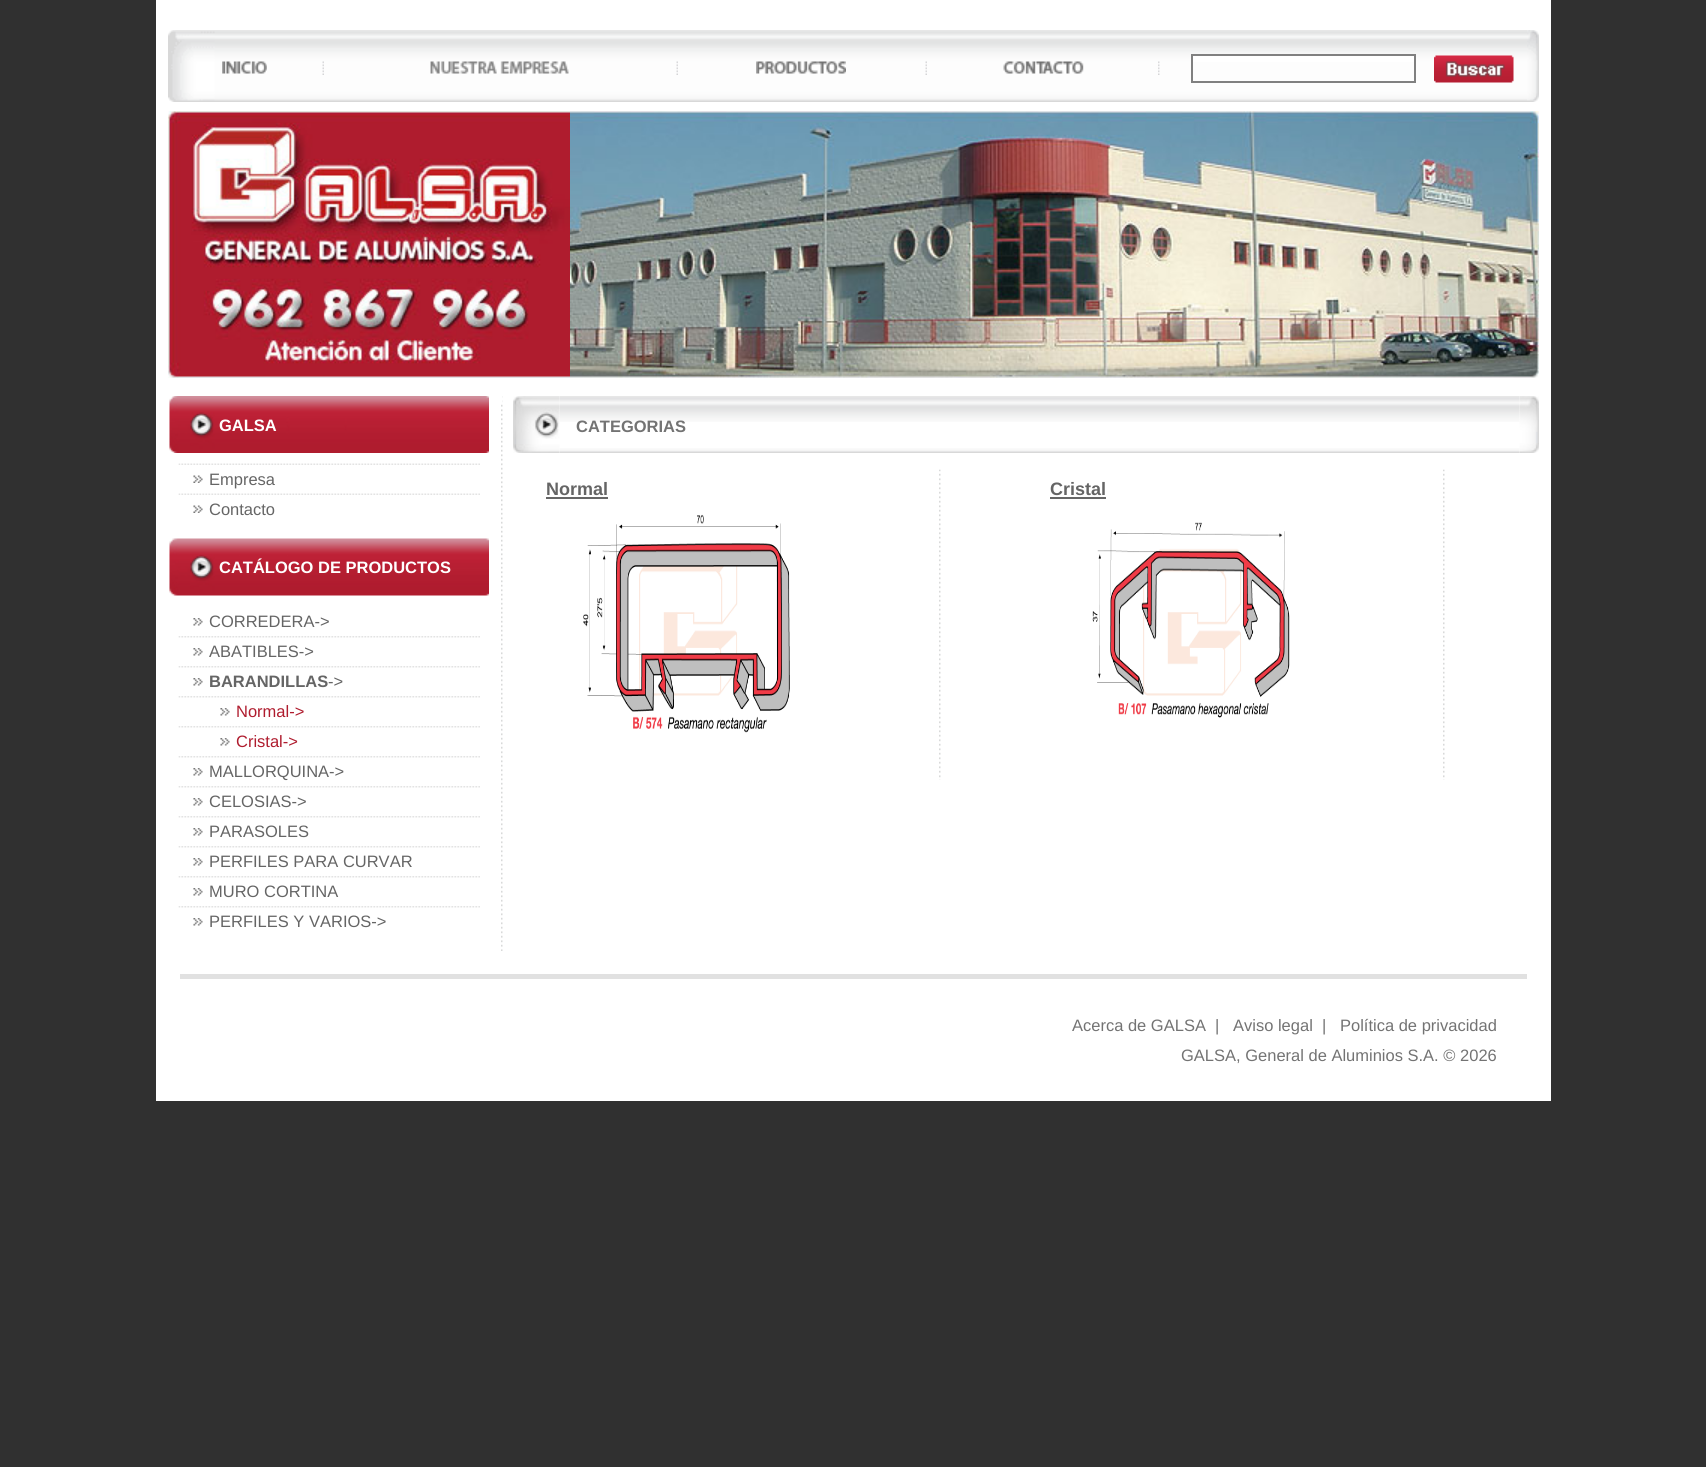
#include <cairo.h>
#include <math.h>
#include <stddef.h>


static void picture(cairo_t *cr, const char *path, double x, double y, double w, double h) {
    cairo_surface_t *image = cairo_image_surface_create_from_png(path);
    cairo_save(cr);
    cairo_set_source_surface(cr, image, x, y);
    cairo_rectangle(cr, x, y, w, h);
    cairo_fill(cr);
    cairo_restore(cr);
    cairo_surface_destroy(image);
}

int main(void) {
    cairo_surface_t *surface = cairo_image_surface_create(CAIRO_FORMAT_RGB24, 1706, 1467);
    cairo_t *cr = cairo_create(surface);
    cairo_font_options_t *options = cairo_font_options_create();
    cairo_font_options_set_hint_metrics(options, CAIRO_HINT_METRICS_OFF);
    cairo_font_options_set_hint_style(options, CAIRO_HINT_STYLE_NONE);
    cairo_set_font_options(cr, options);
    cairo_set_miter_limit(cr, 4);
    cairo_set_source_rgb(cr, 0.188, 0.188, 0.188);
    cairo_paint(cr);
    cairo_set_source_rgb(cr, 1, 1, 1);
    cairo_rectangle(cr, 156, 0, 1395, 1101);
    cairo_fill(cr);
    picture(cr, "img1.png", 214, 30, 1313, 72);
    picture(cr, "img2.png", 168, 30, 47, 72);
    picture(cr, "img3.png", 222, 61, 45, 13);
    picture(cr, "img4.png", 322, 61, 2, 14);
    picture(cr, "img5.png", 430, 61, 139, 13);
    picture(cr, "img4.png", 676, 61, 2, 14);
    picture(cr, "img6.png", 756, 61, 90, 13);
    picture(cr, "img4.png", 925, 61, 2, 14);
    picture(cr, "img7.png", 1003, 61, 81, 13);
    picture(cr, "img8.png", 1158, 61, 2, 14);
    cairo_rectangle(cr, 1193, 56, 221, 6);
    cairo_fill(cr);
    cairo_rectangle(cr, 1192, 55, 223, 27);
    cairo_set_source_rgb(cr, 0.502, 0.502, 0.502);
    cairo_stroke(cr);
    picture(cr, "img9.png", 1434, 55, 80, 28);
    picture(cr, "img10.png", 1527, 30, 12, 72);
    picture(cr, "img11.png", 168, 111, 402, 267);
    picture(cr, "img12.png", 570, 111, 969, 267);
    picture(cr, "img13.png", 501, 396, 2, 555);
    picture(cr, "img14.png", 169, 396, 320, 57);
    cairo_select_font_face(cr, "Liberation Sans", CAIRO_FONT_SLANT_NORMAL, CAIRO_FONT_WEIGHT_BOLD);
    cairo_set_font_size(cr, 16.5);
    cairo_set_source_rgb(cr, 1, 1, 1);
    cairo_move_to(cr, 219, 431);
    cairo_show_text(cr, "GALSA");
    picture(cr, "img15.png", 178, 463, 302, 2);
    picture(cr, "img16.png", 193, 475, 10, 8);
    cairo_select_font_face(cr, "Liberation Sans", CAIRO_FONT_SLANT_NORMAL, CAIRO_FONT_WEIGHT_NORMAL);
    cairo_set_source_rgb(cr, 0.396, 0.396, 0.396);
    cairo_move_to(cr, 209, 485);
    cairo_show_text(cr, "Empresa");
    picture(cr, "img15.png", 178, 493, 302, 2);
    picture(cr, "img16.png", 193, 505, 10, 8);
    cairo_move_to(cr, 209, 515);
    cairo_show_text(cr, "Contacto");
    picture(cr, "img17.png", 169, 538, 320, 58);
    cairo_select_font_face(cr, "Liberation Sans", CAIRO_FONT_SLANT_NORMAL, CAIRO_FONT_WEIGHT_BOLD);
    cairo_set_source_rgb(cr, 1, 1, 1);
    cairo_move_to(cr, 219, 573);
    cairo_show_text(cr, "CATÁLOGO DE PRODUCTOS");
    picture(cr, "img18.png", 193, 618, 10, 8);
    cairo_select_font_face(cr, "Liberation Sans", CAIRO_FONT_SLANT_NORMAL, CAIRO_FONT_WEIGHT_NORMAL);
    cairo_set_source_rgb(cr, 0.396, 0.396, 0.396);
    cairo_move_to(cr, 209, 627);
    cairo_show_text(cr, "CORREDERA->");
    picture(cr, "img19.png", 178, 636, 302, 2);
    picture(cr, "img18.png", 193, 648, 10, 8);
    cairo_move_to(cr, 209, 657);
    cairo_show_text(cr, "ABATIBLES->");
    picture(cr, "img19.png", 178, 666, 302, 2);
    picture(cr, "img18.png", 193, 678, 10, 8);
    cairo_select_font_face(cr, "Liberation Sans", CAIRO_FONT_SLANT_NORMAL, CAIRO_FONT_WEIGHT_BOLD);
    cairo_move_to(cr, 209, 687);
    cairo_show_text(cr, "BARANDILLAS");
    cairo_select_font_face(cr, "Liberation Sans", CAIRO_FONT_SLANT_NORMAL, CAIRO_FONT_WEIGHT_NORMAL);
    cairo_move_to(cr, 328, 687);
    cairo_show_text(cr, "->");
    picture(cr, "img19.png", 178, 696, 302, 2);
    picture(cr, "img18.png", 220, 708, 10, 8);
    cairo_set_source_rgb(cr, 0.686, 0.11, 0.18);
    cairo_move_to(cr, 236, 717);
    cairo_show_text(cr, "Normal->");
    picture(cr, "img19.png", 178, 726, 302, 2);
    picture(cr, "img18.png", 220, 738, 10, 8);
    cairo_move_to(cr, 236, 747);
    cairo_show_text(cr, "Cristal->");
    picture(cr, "img19.png", 178, 756, 302, 2);
    picture(cr, "img18.png", 193, 768, 10, 8);
    cairo_set_source_rgb(cr, 0.396, 0.396, 0.396);
    cairo_move_to(cr, 209, 777);
    cairo_show_text(cr, "MALLORQUINA->");
    picture(cr, "img19.png", 178, 786, 302, 2);
    picture(cr, "img18.png", 193, 798, 10, 8);
    cairo_move_to(cr, 209, 807);
    cairo_show_text(cr, "CELOSIAS->");
    picture(cr, "img19.png", 178, 816, 302, 2);
    picture(cr, "img18.png", 193, 828, 10, 8);
    cairo_move_to(cr, 209, 837);
    cairo_show_text(cr, "PARASOLES");
    picture(cr, "img19.png", 178, 846, 302, 2);
    picture(cr, "img18.png", 193, 858, 10, 8);
    cairo_move_to(cr, 209, 867);
    cairo_show_text(cr, "PERFILES PARA CURVAR");
    picture(cr, "img19.png", 178, 876, 302, 2);
    picture(cr, "img18.png", 193, 888, 10, 8);
    cairo_move_to(cr, 209, 897);
    cairo_show_text(cr, "MURO CORTINA");
    picture(cr, "img19.png", 178, 906, 302, 2);
    picture(cr, "img18.png", 193, 918, 10, 8);
    cairo_move_to(cr, 209, 927);
    cairo_show_text(cr, "PERFILES Y VARIOS->");
    picture(cr, "img20.png", 501, 396, 2, 7);
    picture(cr, "img21.png", 559, 396, 961, 26);
    picture(cr, "img22.png", 559, 448, 961, 5);
    picture(cr, "img23.png", 1519, 396, 20, 57);
    picture(cr, "img24.png", 513, 396, 47, 57);
    picture(cr, "img25.png", 1519, 396, 20, 36);
    picture(cr, "img26.png", 513, 396, 47, 43);
    picture(cr, "img27.png", 1519, 443, 20, 10);
    picture(cr, "img28.png", 513, 444, 47, 9);
    cairo_select_font_face(cr, "Liberation Sans", CAIRO_FONT_SLANT_NORMAL, CAIRO_FONT_WEIGHT_BOLD);
    cairo_set_source_rgb(cr, 0.451, 0.451, 0.451);
    cairo_move_to(cr, 576, 432);
    cairo_show_text(cr, "CATEGORIAS");
    cairo_set_font_size(cr, 18);
    cairo_set_source_rgb(cr, 0.396, 0.396, 0.396);
    cairo_move_to(cr, 546, 495);
    cairo_show_text(cr, "Normal");
    cairo_set_source_rgb(cr, 0.4, 0.4, 0.4);
    cairo_rectangle(cr, 546, 497, 62, 2);
    cairo_fill(cr);
    picture(cr, "img29.png", 583, 514, 207, 219);
    picture(cr, "img30.png", 939, 469, 2, 311);
    cairo_set_source_rgb(cr, 0.396, 0.396, 0.396);
    cairo_move_to(cr, 1050, 495);
    cairo_show_text(cr, "Cristal");
    cairo_set_source_rgb(cr, 0.4, 0.4, 0.4);
    cairo_rectangle(cr, 1050, 497, 56, 2);
    cairo_fill(cr);
    picture(cr, "img31.png", 1092, 522, 198, 196);
    picture(cr, "img30.png", 1443, 469, 2, 311);
    cairo_set_source_rgb(cr, 0.882, 0.882, 0.882);
    cairo_rectangle(cr, 180, 974, 1347, 5);
    cairo_fill(cr);
    cairo_select_font_face(cr, "Liberation Sans", CAIRO_FONT_SLANT_NORMAL, CAIRO_FONT_WEIGHT_NORMAL);
    cairo_set_font_size(cr, 16.5);
    cairo_set_source_rgb(cr, 0.451, 0.451, 0.451);
    cairo_move_to(cr, 1072, 1031);
    cairo_show_text(cr, "Acerca de GALSA");
    cairo_move_to(cr, 1215, 1031);
    cairo_show_text(cr, "|");
    cairo_move_to(cr, 1233, 1031);
    cairo_show_text(cr, "Aviso legal");
    cairo_move_to(cr, 1322, 1031);
    cairo_show_text(cr, "|");
    cairo_move_to(cr, 1340, 1031);
    cairo_show_text(cr, "Política de privacidad");
    cairo_move_to(cr, 1181, 1061);
    cairo_show_text(cr, "GALSA, General de Aluminios S.A. © 2026");
    cairo_surface_write_to_png(surface, "page.png");
    cairo_font_options_destroy(options);
    cairo_destroy(cr);
    cairo_surface_destroy(surface);
    return 0;
}
